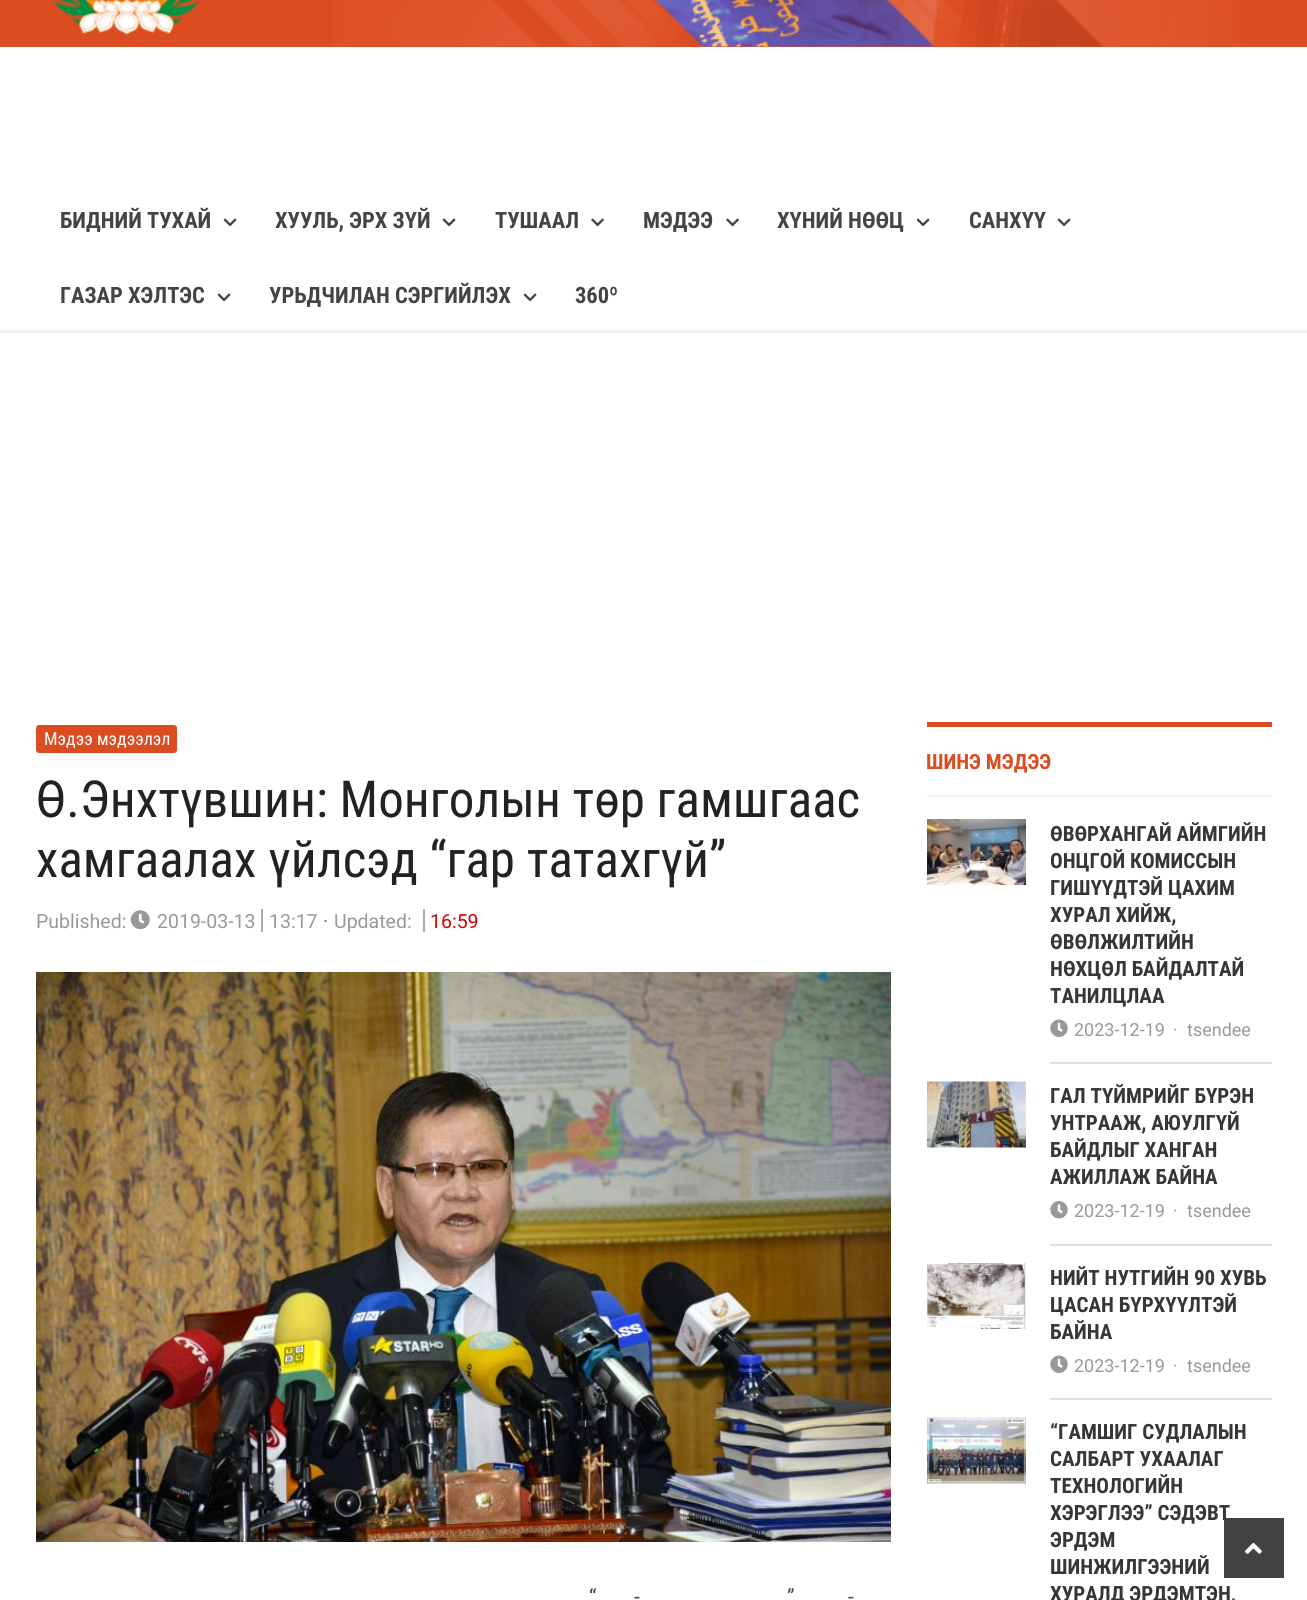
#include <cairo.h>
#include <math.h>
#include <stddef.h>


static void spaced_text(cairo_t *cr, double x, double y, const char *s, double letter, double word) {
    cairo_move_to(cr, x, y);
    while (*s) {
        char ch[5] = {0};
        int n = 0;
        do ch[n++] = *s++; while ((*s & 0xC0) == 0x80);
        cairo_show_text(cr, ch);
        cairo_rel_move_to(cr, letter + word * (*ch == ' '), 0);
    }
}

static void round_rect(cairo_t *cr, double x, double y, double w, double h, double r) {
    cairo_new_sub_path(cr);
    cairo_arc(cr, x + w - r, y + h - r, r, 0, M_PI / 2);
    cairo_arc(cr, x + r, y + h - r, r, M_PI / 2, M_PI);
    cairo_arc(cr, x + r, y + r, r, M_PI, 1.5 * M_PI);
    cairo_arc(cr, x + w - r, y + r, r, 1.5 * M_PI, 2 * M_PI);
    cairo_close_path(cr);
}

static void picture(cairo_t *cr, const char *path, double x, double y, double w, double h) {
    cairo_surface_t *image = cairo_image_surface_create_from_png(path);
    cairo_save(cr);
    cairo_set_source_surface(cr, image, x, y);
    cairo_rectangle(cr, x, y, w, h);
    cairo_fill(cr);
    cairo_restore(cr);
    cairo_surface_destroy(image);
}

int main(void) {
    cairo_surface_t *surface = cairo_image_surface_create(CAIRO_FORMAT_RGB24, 1307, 1600);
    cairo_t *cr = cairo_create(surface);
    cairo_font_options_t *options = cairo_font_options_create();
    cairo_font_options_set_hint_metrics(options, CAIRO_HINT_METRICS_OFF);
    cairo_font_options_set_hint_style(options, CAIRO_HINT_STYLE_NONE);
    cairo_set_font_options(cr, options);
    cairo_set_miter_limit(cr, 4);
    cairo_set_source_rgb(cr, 1, 1, 1);
    cairo_paint(cr);
    cairo_set_source_rgb(cr, 0.859, 0.298, 0.129);
    cairo_rectangle(cr, 0, 0, 1307, 47);
    cairo_fill(cr);
    picture(cr, "img1.png", 334, 0, 907, 47);
    picture(cr, "img2.png", 53, 0, 146, 35);
    cairo_set_source_rgb(cr, 0.941, 0.941, 0.941);
    cairo_rectangle(cr, 0, 330, 1307, 3);
    cairo_fill(cr);
    cairo_select_font_face(cr, "Roboto Condensed", CAIRO_FONT_SLANT_NORMAL, CAIRO_FONT_WEIGHT_BOLD);
    cairo_set_font_size(cr, 22.5);
    cairo_set_source_rgb(cr, 0.267, 0.267, 0.267);
    cairo_move_to(cr, 60, 228);
    cairo_show_text(cr, "БИДНИЙ ТУХАЙ");
    picture(cr, "img3.png", 223, 218, 14, 9);
    cairo_move_to(cr, 275, 228);
    cairo_show_text(cr, "ХУУЛЬ, ЭРХ ЗҮЙ");
    picture(cr, "img3.png", 442, 218, 14, 9);
    cairo_move_to(cr, 495, 228);
    cairo_show_text(cr, "ТУШААЛ");
    picture(cr, "img4.png", 591, 218, 13, 9);
    cairo_move_to(cr, 643, 228);
    cairo_show_text(cr, "МЭДЭЭ");
    picture(cr, "img4.png", 726, 218, 13, 9);
    cairo_move_to(cr, 777, 228);
    cairo_show_text(cr, "ХҮНИЙ НӨӨЦ");
    picture(cr, "img3.png", 916, 218, 14, 9);
    cairo_move_to(cr, 969, 228);
    cairo_show_text(cr, "САНХҮҮ");
    picture(cr, "img3.png", 1057, 218, 14, 9);
    cairo_move_to(cr, 60, 303);
    cairo_show_text(cr, "ГАЗАР ХЭЛТЭС");
    picture(cr, "img3.png", 217, 293, 14, 9);
    cairo_move_to(cr, 269, 303);
    cairo_show_text(cr, "УРЬДЧИЛАН СЭРГИЙЛЭХ");
    picture(cr, "img3.png", 523, 293, 14, 9);
    cairo_move_to(cr, 575, 303);
    cairo_show_text(cr, "360º");
    cairo_set_source_rgb(cr, 0.859, 0.298, 0.129);
    round_rect(cr, 36, 725, 141, 28, 3);
    cairo_fill(cr);
    cairo_select_font_face(cr, "Roboto Condensed", CAIRO_FONT_SLANT_NORMAL, CAIRO_FONT_WEIGHT_NORMAL);
    cairo_set_font_size(cr, 18);
    cairo_set_source_rgb(cr, 1, 1, 1);
    cairo_move_to(cr, 44, 745);
    cairo_show_text(cr, "Мэдээ мэдээлэл");
    cairo_set_font_size(cr, 51);
    cairo_set_source_rgb(cr, 0.133, 0.133, 0.133);
    cairo_move_to(cr, 36, 817);
    cairo_show_text(cr, "Ө.Энхтүвшин: Монголын төр гамшгаас");
    cairo_move_to(cr, 36, 877);
    cairo_show_text(cr, "хамгаалах үйлсэд “гар татахгүй”");
    cairo_select_font_face(cr, "Roboto", CAIRO_FONT_SLANT_NORMAL, CAIRO_FONT_WEIGHT_NORMAL);
    cairo_set_font_size(cr, 19.5);
    cairo_set_source_rgb(cr, 0.6, 0.6, 0.6);
    cairo_move_to(cr, 36, 928);
    cairo_show_text(cr, "Published:");
    picture(cr, "img5.png", 130, 910, 20, 20);
    cairo_move_to(cr, 157, 928);
    cairo_show_text(cr, "2019-03-13");
    cairo_set_source_rgb(cr, 0.675, 0.675, 0.675);
    cairo_rectangle(cr, 261, 909, 2, 23);
    cairo_fill(cr);
    cairo_set_source_rgb(cr, 0.6, 0.6, 0.6);
    cairo_move_to(cr, 269, 928);
    cairo_show_text(cr, "13:17");
    cairo_set_source_rgb(cr, 0.459, 0.459, 0.459);
    cairo_move_to(cr, 323, 928);
    cairo_show_text(cr, "·");
    cairo_set_source_rgb(cr, 0.6, 0.6, 0.6);
    cairo_move_to(cr, 334, 928);
    cairo_show_text(cr, "Updated:");
    cairo_set_source_rgb(cr, 0.867, 0, 0);
    cairo_move_to(cr, 430, 928);
    cairo_show_text(cr, "16:59");
    cairo_set_source_rgb(cr, 0.675, 0.675, 0.675);
    cairo_rectangle(cr, 423, 909, 2, 23);
    cairo_fill(cr);
    picture(cr, "img6.png", 36, 972, 855, 570);
    cairo_set_font_size(cr, 21);
    cairo_set_source_rgb(cr, 0.267, 0.267, 0.267);
    spaced_text(cr, 589, 1604, "“", 0, 9);
    spaced_text(cr, 787, 1604, "”", 0, 9);
    spaced_text(cr, 634, 1604, "-", 0, 9);
    spaced_text(cr, 848, 1604, "-", 0, 9);
    cairo_set_source_rgb(cr, 0.859, 0.298, 0.129);
    cairo_rectangle(cr, 927, 722, 345, 5);
    cairo_fill(cr);
    cairo_set_source_rgb(cr, 0.949, 0.949, 0.949);
    cairo_rectangle(cr, 927, 795, 345, 2);
    cairo_fill(cr);
    cairo_select_font_face(cr, "Roboto Condensed", CAIRO_FONT_SLANT_NORMAL, CAIRO_FONT_WEIGHT_BOLD);
    cairo_set_source_rgb(cr, 0.859, 0.298, 0.129);
    cairo_move_to(cr, 926, 769);
    cairo_show_text(cr, "ШИНЭ МЭДЭЭ");
    picture(cr, "img7.png", 927, 819, 99, 66);
    cairo_set_source_rgb(cr, 0.212, 0.212, 0.212);
    cairo_move_to(cr, 1050, 841);
    cairo_show_text(cr, "ӨВӨРХАНГАЙ АЙМГИЙН");
    cairo_move_to(cr, 1050, 868);
    cairo_show_text(cr, "ОНЦГОЙ КОМИССЫН");
    cairo_move_to(cr, 1050, 895);
    cairo_show_text(cr, "ГИШҮҮДТЭЙ ЦАХИМ");
    cairo_move_to(cr, 1050, 922);
    cairo_show_text(cr, "ХУРАЛ ХИЙЖ,");
    cairo_move_to(cr, 1050, 949);
    cairo_show_text(cr, "ӨВӨЛЖИЛТИЙН");
    cairo_move_to(cr, 1050, 976);
    cairo_show_text(cr, "НӨХЦӨЛ БАЙДАЛТАЙ");
    cairo_move_to(cr, 1050, 1003);
    cairo_show_text(cr, "ТАНИЛЦЛАА");
    picture(cr, "img8.png", 1050, 1019, 18, 18);
    cairo_select_font_face(cr, "Roboto", CAIRO_FONT_SLANT_NORMAL, CAIRO_FONT_WEIGHT_NORMAL);
    cairo_set_font_size(cr, 18);
    cairo_set_source_rgb(cr, 0.6, 0.6, 0.6);
    cairo_move_to(cr, 1074, 1036);
    cairo_show_text(cr, "2023-12-19");
    cairo_move_to(cr, 1173, 1036);
    cairo_show_text(cr, "·");
    cairo_move_to(cr, 1187, 1036);
    cairo_show_text(cr, "tsendee");
    cairo_set_source_rgb(cr, 0.878, 0.878, 0.878);
    cairo_rectangle(cr, 1050, 1062, 222, 2);
    cairo_fill(cr);
    picture(cr, "img9.png", 927, 1081, 99, 67);
    cairo_select_font_face(cr, "Roboto Condensed", CAIRO_FONT_SLANT_NORMAL, CAIRO_FONT_WEIGHT_BOLD);
    cairo_set_font_size(cr, 21);
    cairo_set_source_rgb(cr, 0.212, 0.212, 0.212);
    cairo_move_to(cr, 1050, 1103);
    cairo_show_text(cr, "ГАЛ ТҮЙМРИЙГ БҮРЭН");
    cairo_move_to(cr, 1050, 1130);
    cairo_show_text(cr, "УНТРААЖ, АЮУЛГҮЙ");
    cairo_move_to(cr, 1050, 1157);
    cairo_show_text(cr, "БАЙДЛЫГ ХАНГАН");
    cairo_move_to(cr, 1050, 1184);
    cairo_show_text(cr, "АЖИЛЛАЖ БАЙНА");
    picture(cr, "img10.png", 1050, 1201, 18, 18);
    cairo_select_font_face(cr, "Roboto", CAIRO_FONT_SLANT_NORMAL, CAIRO_FONT_WEIGHT_NORMAL);
    cairo_set_font_size(cr, 18);
    cairo_set_source_rgb(cr, 0.6, 0.6, 0.6);
    cairo_move_to(cr, 1074, 1217);
    cairo_show_text(cr, "2023-12-19");
    cairo_move_to(cr, 1173, 1217);
    cairo_show_text(cr, "·");
    cairo_move_to(cr, 1187, 1217);
    cairo_show_text(cr, "tsendee");
    cairo_set_source_rgb(cr, 0.878, 0.878, 0.878);
    cairo_rectangle(cr, 1050, 1244, 222, 2);
    cairo_fill(cr);
    picture(cr, "img11.png", 927, 1263, 99, 66);
    cairo_select_font_face(cr, "Roboto Condensed", CAIRO_FONT_SLANT_NORMAL, CAIRO_FONT_WEIGHT_BOLD);
    cairo_set_font_size(cr, 21);
    cairo_set_source_rgb(cr, 0.212, 0.212, 0.212);
    cairo_move_to(cr, 1050, 1285);
    cairo_show_text(cr, "НИЙТ НУТГИЙН 90 ХУВЬ");
    cairo_move_to(cr, 1050, 1312);
    cairo_show_text(cr, "ЦАСАН БҮРХҮҮЛТЭЙ");
    cairo_move_to(cr, 1050, 1339);
    cairo_show_text(cr, "БАЙНА");
    picture(cr, "img8.png", 1050, 1355, 18, 18);
    cairo_select_font_face(cr, "Roboto", CAIRO_FONT_SLANT_NORMAL, CAIRO_FONT_WEIGHT_NORMAL);
    cairo_set_font_size(cr, 18);
    cairo_set_source_rgb(cr, 0.6, 0.6, 0.6);
    cairo_move_to(cr, 1074, 1372);
    cairo_show_text(cr, "2023-12-19");
    cairo_move_to(cr, 1173, 1372);
    cairo_show_text(cr, "·");
    cairo_move_to(cr, 1187, 1372);
    cairo_show_text(cr, "tsendee");
    cairo_set_source_rgb(cr, 0.878, 0.878, 0.878);
    cairo_rectangle(cr, 1050, 1398, 222, 2);
    cairo_fill(cr);
    picture(cr, "img12.png", 927, 1417, 99, 67);
    cairo_select_font_face(cr, "Roboto Condensed", CAIRO_FONT_SLANT_NORMAL, CAIRO_FONT_WEIGHT_BOLD);
    cairo_set_font_size(cr, 21);
    cairo_set_source_rgb(cr, 0.212, 0.212, 0.212);
    cairo_move_to(cr, 1050, 1439);
    cairo_show_text(cr, "“ГАМШИГ СУДЛАЛЫН");
    cairo_move_to(cr, 1050, 1466);
    cairo_show_text(cr, "САЛБАРТ УХААЛАГ");
    cairo_move_to(cr, 1050, 1493);
    cairo_show_text(cr, "ТЕХНОЛОГИЙН");
    cairo_move_to(cr, 1050, 1520);
    cairo_show_text(cr, "ХЭРЭГЛЭЭ” СЭДЭВТ");
    cairo_move_to(cr, 1050, 1547);
    cairo_show_text(cr, "ЭРДЭМ");
    cairo_move_to(cr, 1050, 1574);
    cairo_show_text(cr, "ШИНЖИЛГЭЭНИЙ");
    cairo_move_to(cr, 1050, 1601);
    cairo_show_text(cr, "ХУРАЛД ЭРДЭМТЭН,");
    cairo_set_source_rgb(cr, 0.259, 0.259, 0.259);
    cairo_rectangle(cr, 1224, 1518, 60, 60);
    cairo_fill(cr);
    picture(cr, "img13.png", 1245, 1543, 17, 11);
    cairo_surface_write_to_png(surface, "page.png");
    cairo_font_options_destroy(options);
    cairo_destroy(cr);
    cairo_surface_destroy(surface);
    return 0;
}
